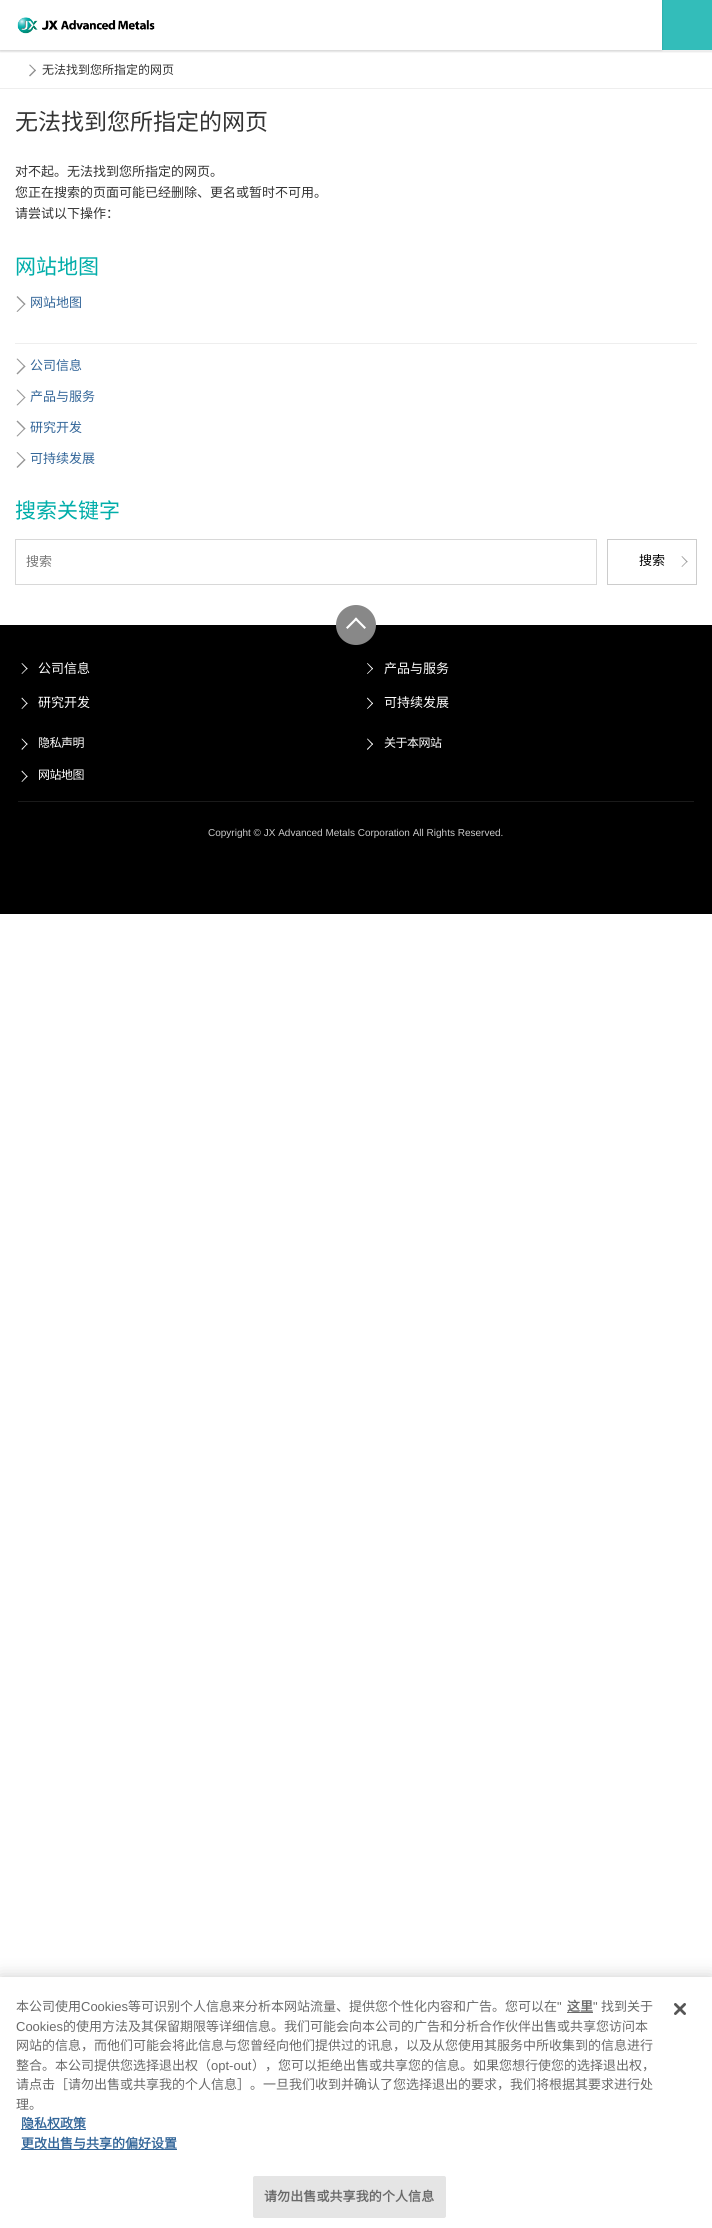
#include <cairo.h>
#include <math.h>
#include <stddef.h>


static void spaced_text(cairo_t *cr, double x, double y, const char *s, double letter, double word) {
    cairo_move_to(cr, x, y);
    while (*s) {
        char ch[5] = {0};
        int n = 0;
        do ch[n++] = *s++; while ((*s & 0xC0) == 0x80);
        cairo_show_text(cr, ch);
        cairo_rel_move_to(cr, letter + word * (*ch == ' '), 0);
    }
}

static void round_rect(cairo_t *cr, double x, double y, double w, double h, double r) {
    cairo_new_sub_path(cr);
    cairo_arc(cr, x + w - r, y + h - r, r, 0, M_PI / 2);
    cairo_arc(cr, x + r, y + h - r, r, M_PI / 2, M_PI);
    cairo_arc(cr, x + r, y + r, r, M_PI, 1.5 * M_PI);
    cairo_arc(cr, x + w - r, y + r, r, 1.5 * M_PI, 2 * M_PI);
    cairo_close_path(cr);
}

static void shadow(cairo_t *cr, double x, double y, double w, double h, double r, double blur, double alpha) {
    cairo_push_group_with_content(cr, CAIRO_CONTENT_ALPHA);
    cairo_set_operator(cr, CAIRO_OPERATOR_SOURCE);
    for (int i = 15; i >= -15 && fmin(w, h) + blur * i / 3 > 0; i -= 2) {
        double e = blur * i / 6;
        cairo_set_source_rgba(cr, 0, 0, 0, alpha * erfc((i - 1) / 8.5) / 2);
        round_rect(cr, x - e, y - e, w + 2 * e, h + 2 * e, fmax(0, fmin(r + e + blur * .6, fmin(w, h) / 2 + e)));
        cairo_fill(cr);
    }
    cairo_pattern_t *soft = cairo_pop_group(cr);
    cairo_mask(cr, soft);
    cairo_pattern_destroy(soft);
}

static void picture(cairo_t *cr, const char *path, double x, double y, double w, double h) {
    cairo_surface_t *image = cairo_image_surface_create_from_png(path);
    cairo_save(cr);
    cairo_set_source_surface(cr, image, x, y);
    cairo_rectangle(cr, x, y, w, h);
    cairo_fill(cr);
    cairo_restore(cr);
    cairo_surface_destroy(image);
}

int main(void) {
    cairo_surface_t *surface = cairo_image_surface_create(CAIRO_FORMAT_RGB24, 712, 2228);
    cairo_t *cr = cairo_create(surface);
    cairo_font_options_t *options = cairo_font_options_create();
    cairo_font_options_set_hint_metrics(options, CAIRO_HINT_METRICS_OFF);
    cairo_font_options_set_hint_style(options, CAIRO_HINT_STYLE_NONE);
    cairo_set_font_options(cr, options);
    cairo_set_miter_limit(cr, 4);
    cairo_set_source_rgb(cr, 1, 1, 1);
    cairo_paint(cr);
    cairo_save(cr);
    cairo_rectangle(cr, 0, 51, 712, 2);
    cairo_clip(cr);
    cairo_set_source_rgb(cr, 0, 0, 0);
    shadow(cr, 0, 0, 712, 51, 0, 1.5, 0.2);
    cairo_restore(cr);
    cairo_set_source_rgb(cr, 0.933, 0.933, 0.933);
    cairo_rectangle(cr, 0, 50, 712, 1);
    cairo_fill(cr);
    cairo_set_source_rgb(cr, 0.2, 0.741, 0.729);
    cairo_rectangle(cr, 662, 0, 50, 50);
    cairo_fill(cr);
    cairo_save(cr);
    cairo_set_fill_rule(cr, CAIRO_FILL_RULE_EVEN_ODD);
    cairo_new_path(cr);
    cairo_move_to(cr, 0, 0);
    cairo_line_to(cr, 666, 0);
    cairo_line_to(cr, 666, 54);
    cairo_line_to(cr, 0, 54);
    cairo_close_path(cr);
    cairo_move_to(cr, 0, 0);
    cairo_line_to(cr, 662, 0);
    cairo_line_to(cr, 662, 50);
    cairo_line_to(cr, 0, 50);
    cairo_close_path(cr);
    cairo_clip(cr);
    cairo_set_source_rgb(cr, 0, 0, 0);
    shadow(cr, 0, 0, 662, 50, 0, 1, 0.2);
    cairo_restore(cr);
    picture(cr, "img1.png", 17, 17, 138, 17);
    cairo_set_source_rgb(cr, 0.933, 0.933, 0.933);
    cairo_rectangle(cr, 0, 88, 712, 1);
    cairo_fill(cr);
    cairo_set_source_rgb(cr, 0.565, 0.565, 0.565);
    cairo_new_path(cr);
    cairo_move_to(cr, 30, 64.5);
    cairo_line_to(cr, 36, 70.5);
    cairo_line_to(cr, 35, 71);
    cairo_line_to(cr, 29, 65);
    cairo_close_path(cr);
    cairo_fill(cr);
    cairo_new_path(cr);
    cairo_move_to(cr, 35, 69.5);
    cairo_line_to(cr, 36, 70.5);
    cairo_line_to(cr, 30, 76.5);
    cairo_line_to(cr, 29, 75.5);
    cairo_close_path(cr);
    cairo_fill(cr);
    cairo_select_font_face(cr, "Noto Sans CJK SC", CAIRO_FONT_SLANT_NORMAL, CAIRO_FONT_WEIGHT_NORMAL);
    cairo_set_font_size(cr, 12);
    cairo_set_source_rgb(cr, 0.2, 0.2, 0.2);
    cairo_move_to(cr, 42, 74);
    cairo_show_text(cr, "无法找到您所指定的网页");
    cairo_set_font_size(cr, 23);
    cairo_move_to(cr, 15, 130);
    cairo_show_text(cr, "无法找到您所指定的网页");
    cairo_set_font_size(cr, 13);
    cairo_move_to(cr, 15, 176);
    cairo_show_text(cr, "对不起。无法找到您所指定的网页。");
    cairo_move_to(cr, 15, 197);
    cairo_show_text(cr, "您正在搜索的页面可能已经删除、更名或暂时不可用。");
    cairo_move_to(cr, 15, 218);
    cairo_show_text(cr, "请尝试以下操作：");
    cairo_set_font_size(cr, 21);
    cairo_set_source_rgb(cr, 0, 0.678, 0.663);
    cairo_move_to(cr, 15, 274);
    cairo_show_text(cr, "网站地图");
    cairo_set_source_rgb(cr, 0.588, 0.588, 0.588);
    cairo_new_path(cr);
    cairo_move_to(cr, 17.5, 296);
    cairo_line_to(cr, 25.5, 304);
    cairo_line_to(cr, 24.5, 305);
    cairo_line_to(cr, 16.5, 297);
    cairo_close_path(cr);
    cairo_fill(cr);
    cairo_new_path(cr);
    cairo_move_to(cr, 24.5, 303.5);
    cairo_line_to(cr, 25.5, 304);
    cairo_line_to(cr, 17.5, 312);
    cairo_line_to(cr, 16.5, 311.5);
    cairo_close_path(cr);
    cairo_fill(cr);
    cairo_set_font_size(cr, 13);
    cairo_set_source_rgb(cr, 0.2, 0.4, 0.6);
    cairo_move_to(cr, 30, 307);
    cairo_show_text(cr, "网站地图");
    cairo_set_source_rgb(cr, 0.933, 0.933, 0.933);
    cairo_rectangle(cr, 15, 343, 682, 1);
    cairo_fill(cr);
    cairo_set_source_rgb(cr, 0.588, 0.588, 0.588);
    cairo_new_path(cr);
    cairo_move_to(cr, 17.5, 358.5);
    cairo_line_to(cr, 25.5, 366.5);
    cairo_line_to(cr, 24.5, 367);
    cairo_line_to(cr, 16.5, 359);
    cairo_close_path(cr);
    cairo_fill(cr);
    cairo_new_path(cr);
    cairo_move_to(cr, 24.5, 365.5);
    cairo_line_to(cr, 25.5, 366.5);
    cairo_line_to(cr, 17.5, 374.5);
    cairo_line_to(cr, 16.5, 373.5);
    cairo_close_path(cr);
    cairo_fill(cr);
    cairo_set_source_rgb(cr, 0.2, 0.4, 0.6);
    cairo_move_to(cr, 30, 370);
    cairo_show_text(cr, "公司信息");
    cairo_set_source_rgb(cr, 0.588, 0.588, 0.588);
    cairo_new_path(cr);
    cairo_move_to(cr, 17.5, 389.5);
    cairo_line_to(cr, 25.5, 397.5);
    cairo_line_to(cr, 24.5, 398);
    cairo_line_to(cr, 16.5, 390);
    cairo_close_path(cr);
    cairo_fill(cr);
    cairo_new_path(cr);
    cairo_move_to(cr, 24.5, 397);
    cairo_line_to(cr, 25.5, 397.5);
    cairo_line_to(cr, 17.5, 405.5);
    cairo_line_to(cr, 16.5, 405);
    cairo_close_path(cr);
    cairo_fill(cr);
    cairo_set_source_rgb(cr, 0.2, 0.4, 0.6);
    cairo_move_to(cr, 30, 401);
    cairo_show_text(cr, "产品与服务");
    cairo_set_source_rgb(cr, 0.588, 0.588, 0.588);
    cairo_new_path(cr);
    cairo_move_to(cr, 17.5, 420.5);
    cairo_line_to(cr, 25.5, 428.5);
    cairo_line_to(cr, 24.5, 429.5);
    cairo_line_to(cr, 16.5, 421.5);
    cairo_close_path(cr);
    cairo_fill(cr);
    cairo_new_path(cr);
    cairo_move_to(cr, 24.5, 428);
    cairo_line_to(cr, 25.5, 428.5);
    cairo_line_to(cr, 17.5, 436.5);
    cairo_line_to(cr, 16.5, 436);
    cairo_close_path(cr);
    cairo_fill(cr);
    cairo_set_source_rgb(cr, 0.2, 0.4, 0.6);
    cairo_move_to(cr, 30, 432);
    cairo_show_text(cr, "研究开发");
    cairo_set_source_rgb(cr, 0.588, 0.588, 0.588);
    cairo_new_path(cr);
    cairo_move_to(cr, 17.5, 452);
    cairo_line_to(cr, 25.5, 460);
    cairo_line_to(cr, 24.5, 460.5);
    cairo_line_to(cr, 16.5, 452.5);
    cairo_close_path(cr);
    cairo_fill(cr);
    cairo_new_path(cr);
    cairo_move_to(cr, 24.5, 459);
    cairo_line_to(cr, 25.5, 460);
    cairo_line_to(cr, 17.5, 468);
    cairo_line_to(cr, 16.5, 467);
    cairo_close_path(cr);
    cairo_fill(cr);
    cairo_set_source_rgb(cr, 0.2, 0.4, 0.6);
    cairo_move_to(cr, 30, 463);
    cairo_show_text(cr, "可持续发展");
    cairo_set_font_size(cr, 21);
    cairo_set_source_rgb(cr, 0, 0.678, 0.663);
    cairo_move_to(cr, 15, 518);
    cairo_show_text(cr, "搜索关键字");
    cairo_rectangle(cr, 15.5, 539.5, 581, 45);
    cairo_set_source_rgb(cr, 0.847, 0.847, 0.847);
    cairo_set_line_width(cr, 1);
    cairo_stroke(cr);
    cairo_set_font_size(cr, 13);
    cairo_set_source_rgb(cr, 0.459, 0.459, 0.459);
    cairo_move_to(cr, 26, 566);
    cairo_show_text(cr, "搜索");
    cairo_rectangle(cr, 607.5, 539.5, 89, 45);
    cairo_set_source_rgb(cr, 0.8, 0.8, 0.8);
    cairo_stroke(cr);
    cairo_set_source_rgb(cr, 0, 0, 0);
    cairo_move_to(cr, 639, 565);
    cairo_show_text(cr, "搜索");
    cairo_set_source_rgb(cr, 0.588, 0.588, 0.588);
    cairo_new_path(cr);
    cairo_move_to(cr, 682, 556);
    cairo_line_to(cr, 687.5, 561.5);
    cairo_line_to(cr, 687, 562.5);
    cairo_line_to(cr, 681.5, 556.5);
    cairo_close_path(cr);
    cairo_fill(cr);
    cairo_new_path(cr);
    cairo_move_to(cr, 687, 561);
    cairo_line_to(cr, 687.5, 561.5);
    cairo_line_to(cr, 682, 567);
    cairo_line_to(cr, 681.5, 566.5);
    cairo_close_path(cr);
    cairo_fill(cr);
    cairo_set_source_rgb(cr, 0, 0, 0);
    cairo_rectangle(cr, 0, 625, 712, 289);
    cairo_fill(cr);
    cairo_set_source_rgb(cr, 0.533, 0.533, 0.533);
    cairo_arc(cr, 356, 625, 20, 0, 2 * M_PI);
    cairo_fill(cr);
    cairo_set_source_rgb(cr, 1, 1, 1);
    cairo_new_path(cr);
    cairo_move_to(cr, 346, 627.5);
    cairo_line_to(cr, 356, 617.5);
    cairo_line_to(cr, 357.5, 619);
    cairo_line_to(cr, 347.5, 629);
    cairo_close_path(cr);
    cairo_fill(cr);
    cairo_new_path(cr);
    cairo_move_to(cr, 354.5, 619);
    cairo_line_to(cr, 356, 617.5);
    cairo_line_to(cr, 366, 627.5);
    cairo_line_to(cr, 364.5, 629);
    cairo_close_path(cr);
    cairo_fill(cr);
    cairo_new_path(cr);
    cairo_move_to(cr, 22, 663);
    cairo_line_to(cr, 27.5, 668.5);
    cairo_line_to(cr, 27, 669.5);
    cairo_line_to(cr, 21.5, 663.5);
    cairo_close_path(cr);
    cairo_fill(cr);
    cairo_new_path(cr);
    cairo_move_to(cr, 27, 668);
    cairo_line_to(cr, 27.5, 668.5);
    cairo_line_to(cr, 22, 674);
    cairo_line_to(cr, 21.5, 673.5);
    cairo_close_path(cr);
    cairo_fill(cr);
    cairo_move_to(cr, 38, 673);
    cairo_show_text(cr, "公司信息");
    cairo_new_path(cr);
    cairo_move_to(cr, 367.5, 663);
    cairo_line_to(cr, 373, 668.5);
    cairo_line_to(cr, 372.5, 669.5);
    cairo_line_to(cr, 367, 663.5);
    cairo_close_path(cr);
    cairo_fill(cr);
    cairo_new_path(cr);
    cairo_move_to(cr, 372.5, 668);
    cairo_line_to(cr, 373, 668.5);
    cairo_line_to(cr, 367.5, 674);
    cairo_line_to(cr, 367, 673.5);
    cairo_close_path(cr);
    cairo_fill(cr);
    cairo_move_to(cr, 384, 673);
    cairo_show_text(cr, "产品与服务");
    cairo_new_path(cr);
    cairo_move_to(cr, 22, 697.5);
    cairo_line_to(cr, 27.5, 703.5);
    cairo_line_to(cr, 27, 704);
    cairo_line_to(cr, 21.5, 698.5);
    cairo_close_path(cr);
    cairo_fill(cr);
    cairo_new_path(cr);
    cairo_move_to(cr, 27, 702.5);
    cairo_line_to(cr, 27.5, 703.5);
    cairo_line_to(cr, 22, 709);
    cairo_line_to(cr, 21.5, 708.5);
    cairo_close_path(cr);
    cairo_fill(cr);
    cairo_move_to(cr, 38, 707);
    cairo_show_text(cr, "研究开发");
    cairo_new_path(cr);
    cairo_move_to(cr, 367.5, 697.5);
    cairo_line_to(cr, 373, 703.5);
    cairo_line_to(cr, 372.5, 704);
    cairo_line_to(cr, 367, 698.5);
    cairo_close_path(cr);
    cairo_fill(cr);
    cairo_new_path(cr);
    cairo_move_to(cr, 372.5, 702.5);
    cairo_line_to(cr, 373, 703.5);
    cairo_line_to(cr, 367.5, 709);
    cairo_line_to(cr, 367, 708.5);
    cairo_close_path(cr);
    cairo_fill(cr);
    cairo_move_to(cr, 384, 707);
    cairo_show_text(cr, "可持续发展");
    cairo_new_path(cr);
    cairo_move_to(cr, 22, 738.5);
    cairo_line_to(cr, 27.5, 744);
    cairo_line_to(cr, 27, 745);
    cairo_line_to(cr, 21.5, 739);
    cairo_close_path(cr);
    cairo_fill(cr);
    cairo_new_path(cr);
    cairo_move_to(cr, 27, 743.5);
    cairo_line_to(cr, 27.5, 744);
    cairo_line_to(cr, 22, 750);
    cairo_line_to(cr, 21.5, 749);
    cairo_close_path(cr);
    cairo_fill(cr);
    cairo_set_font_size(cr, 12);
    spaced_text(cr, 38, 747, "隐私声明", -0.5, 0);
    cairo_new_path(cr);
    cairo_move_to(cr, 367.5, 738.5);
    cairo_line_to(cr, 373, 744);
    cairo_line_to(cr, 372.5, 745);
    cairo_line_to(cr, 367, 739);
    cairo_close_path(cr);
    cairo_fill(cr);
    cairo_new_path(cr);
    cairo_move_to(cr, 372.5, 743.5);
    cairo_line_to(cr, 373, 744);
    cairo_line_to(cr, 367.5, 750);
    cairo_line_to(cr, 367, 749);
    cairo_close_path(cr);
    cairo_fill(cr);
    spaced_text(cr, 384, 747, "关于本网站", -0.5, 0);
    cairo_new_path(cr);
    cairo_move_to(cr, 22, 770.5);
    cairo_line_to(cr, 27.5, 776.5);
    cairo_line_to(cr, 27, 777);
    cairo_line_to(cr, 21.5, 771.5);
    cairo_close_path(cr);
    cairo_fill(cr);
    cairo_new_path(cr);
    cairo_move_to(cr, 27, 775.5);
    cairo_line_to(cr, 27.5, 776.5);
    cairo_line_to(cr, 22, 782);
    cairo_line_to(cr, 21.5, 781.5);
    cairo_close_path(cr);
    cairo_fill(cr);
    spaced_text(cr, 38, 779, "网站地图", -0.5, 0);
    cairo_set_source_rgb(cr, 0.102, 0.102, 0.102);
    cairo_rectangle(cr, 18, 801, 676, 1);
    cairo_fill(cr);
    cairo_select_font_face(cr, "Liberation Sans", CAIRO_FONT_SLANT_NORMAL, CAIRO_FONT_WEIGHT_NORMAL);
    cairo_set_font_size(cr, 10);
    cairo_set_source_rgb(cr, 0.796, 0.796, 0.796);
    cairo_move_to(cr, 208, 836);
    cairo_show_text(cr, "Copyright © JX Advanced Metals Corporation All Rights Reserved.");
    cairo_set_source_rgb(cr, 0, 0, 0);
    shadow(cr, 0, 1977, 712, 251, 0, 9, 0.2);
    cairo_set_source_rgb(cr, 1, 1, 1);
    cairo_rectangle(cr, 0, 1977, 712, 251);
    cairo_fill(cr);
    cairo_select_font_face(cr, "Noto Sans CJK SC", CAIRO_FONT_SLANT_NORMAL, CAIRO_FONT_WEIGHT_NORMAL);
    cairo_set_font_size(cr, 13);
    cairo_set_source_rgb(cr, 0.412, 0.412, 0.412);
    cairo_move_to(cr, 16, 2011);
    cairo_show_text(cr, "本公司使用");
    cairo_select_font_face(cr, "Liberation Sans", CAIRO_FONT_SLANT_NORMAL, CAIRO_FONT_WEIGHT_NORMAL);
    cairo_move_to(cr, 81, 2011);
    cairo_show_text(cr, "Cookies");
    cairo_select_font_face(cr, "Noto Sans CJK SC", CAIRO_FONT_SLANT_NORMAL, CAIRO_FONT_WEIGHT_NORMAL);
    cairo_move_to(cr, 128, 2011);
    cairo_show_text(cr, "等可识别个人信息来分析本网站流量、提供您个性化内容和广告。您可以在");
    cairo_select_font_face(cr, "Liberation Sans", CAIRO_FONT_SLANT_NORMAL, CAIRO_FONT_WEIGHT_NORMAL);
    cairo_move_to(cr, 557, 2011);
    cairo_show_text(cr, "\"");
    cairo_select_font_face(cr, "Noto Sans CJK SC", CAIRO_FONT_SLANT_NORMAL, CAIRO_FONT_WEIGHT_BOLD);
    cairo_move_to(cr, 567, 2011);
    cairo_show_text(cr, "这里");
    cairo_rectangle(cr, 567, 2012, 26, 1);
    cairo_fill(cr);
    cairo_select_font_face(cr, "Liberation Sans", CAIRO_FONT_SLANT_NORMAL, CAIRO_FONT_WEIGHT_NORMAL);
    cairo_move_to(cr, 593, 2011);
    cairo_show_text(cr, "\"");
    cairo_select_font_face(cr, "Noto Sans CJK SC", CAIRO_FONT_SLANT_NORMAL, CAIRO_FONT_WEIGHT_NORMAL);
    cairo_move_to(cr, 601, 2011);
    cairo_show_text(cr, "找到关于");
    cairo_select_font_face(cr, "Liberation Sans", CAIRO_FONT_SLANT_NORMAL, CAIRO_FONT_WEIGHT_NORMAL);
    cairo_move_to(cr, 16, 2031);
    cairo_show_text(cr, "Cookies");
    cairo_select_font_face(cr, "Noto Sans CJK SC", CAIRO_FONT_SLANT_NORMAL, CAIRO_FONT_WEIGHT_NORMAL);
    cairo_move_to(cr, 63, 2031);
    cairo_show_text(cr, "的使用方法及其保留期限等详细信息。我们可能会向本公司的广告和分析合作伙伴出售或共享您访问本");
    cairo_move_to(cr, 16, 2050);
    cairo_show_text(cr, "网站的信息，而他们可能会将此信息与您曾经向他们提供过的讯息，以及从您使用其服务中所收集到的信息进行");
    cairo_move_to(cr, 16, 2070);
    cairo_show_text(cr, "整合。本公司提供您选择退出权（");
    cairo_select_font_face(cr, "Liberation Sans", CAIRO_FONT_SLANT_NORMAL, CAIRO_FONT_WEIGHT_NORMAL);
    cairo_move_to(cr, 211, 2070);
    cairo_show_text(cr, "opt-out");
    cairo_select_font_face(cr, "Noto Sans CJK SC", CAIRO_FONT_SLANT_NORMAL, CAIRO_FONT_WEIGHT_NORMAL);
    cairo_move_to(cr, 252, 2070);
    cairo_show_text(cr, "），您可以拒绝出售或共享您的信息。如果您想行使您的选择退出权，");
    cairo_move_to(cr, 16, 2089);
    cairo_show_text(cr, "请点击［请勿出售或共享我的个人信息］。一旦我们收到并确认了您选择退出的要求，我们将根据其要求进行处");
    cairo_move_to(cr, 16, 2109);
    cairo_show_text(cr, "理。");
    cairo_set_source_rgb(cr, 0.2, 0.4, 0.6);
    cairo_rectangle(cr, 21, 2129, 65, 1);
    cairo_fill(cr);
    cairo_select_font_face(cr, "Noto Sans CJK SC", CAIRO_FONT_SLANT_NORMAL, CAIRO_FONT_WEIGHT_BOLD);
    cairo_move_to(cr, 21, 2128);
    cairo_show_text(cr, "隐私权政策");
    cairo_rectangle(cr, 21, 2149, 156, 1);
    cairo_fill(cr);
    cairo_move_to(cr, 21, 2148);
    cairo_show_text(cr, "更改出售与共享的偏好设置");
    cairo_set_source_rgb(cr, 0.898, 0.898, 0.898);
    round_rect(cr, 253.5, 2176.5, 192, 41, 1.5);
    cairo_fill_preserve(cr);
    cairo_stroke(cr);
    cairo_set_source_rgb(cr, 0.412, 0.412, 0.412);
    spaced_text(cr, 264, 2201, "请勿出售或共享我的个人信息", 0.1, 0);
    picture(cr, "img2.png", 674, 2003, 12, 12);
    cairo_surface_write_to_png(surface, "page.png");
    cairo_font_options_destroy(options);
    cairo_destroy(cr);
    cairo_surface_destroy(surface);
    return 0;
}
